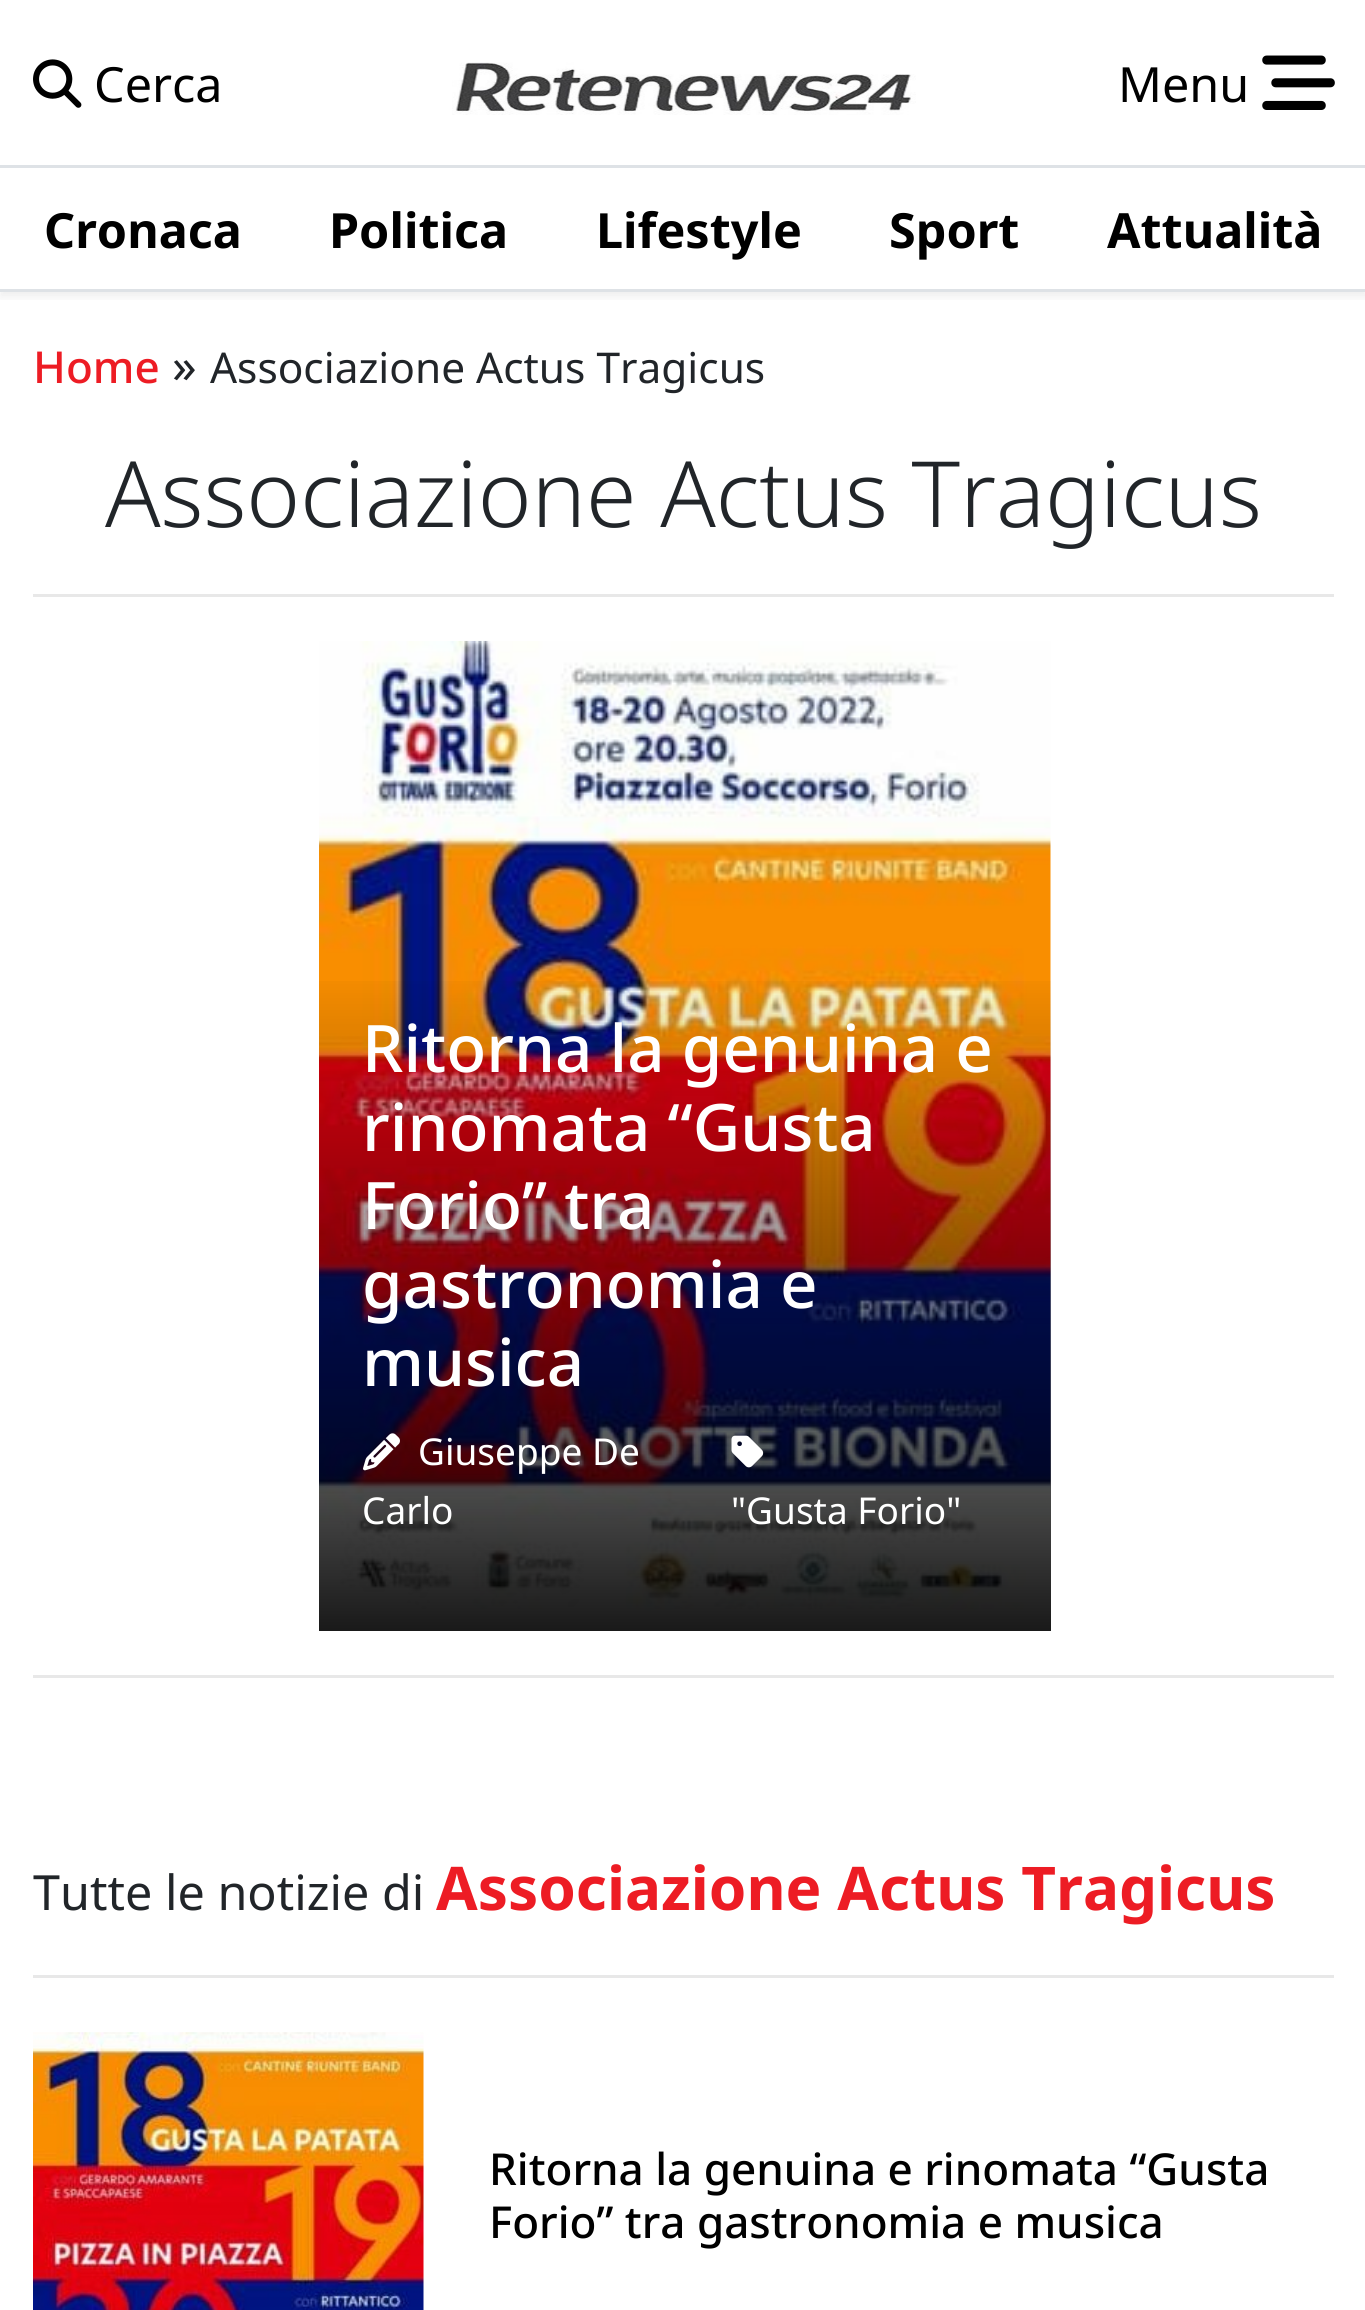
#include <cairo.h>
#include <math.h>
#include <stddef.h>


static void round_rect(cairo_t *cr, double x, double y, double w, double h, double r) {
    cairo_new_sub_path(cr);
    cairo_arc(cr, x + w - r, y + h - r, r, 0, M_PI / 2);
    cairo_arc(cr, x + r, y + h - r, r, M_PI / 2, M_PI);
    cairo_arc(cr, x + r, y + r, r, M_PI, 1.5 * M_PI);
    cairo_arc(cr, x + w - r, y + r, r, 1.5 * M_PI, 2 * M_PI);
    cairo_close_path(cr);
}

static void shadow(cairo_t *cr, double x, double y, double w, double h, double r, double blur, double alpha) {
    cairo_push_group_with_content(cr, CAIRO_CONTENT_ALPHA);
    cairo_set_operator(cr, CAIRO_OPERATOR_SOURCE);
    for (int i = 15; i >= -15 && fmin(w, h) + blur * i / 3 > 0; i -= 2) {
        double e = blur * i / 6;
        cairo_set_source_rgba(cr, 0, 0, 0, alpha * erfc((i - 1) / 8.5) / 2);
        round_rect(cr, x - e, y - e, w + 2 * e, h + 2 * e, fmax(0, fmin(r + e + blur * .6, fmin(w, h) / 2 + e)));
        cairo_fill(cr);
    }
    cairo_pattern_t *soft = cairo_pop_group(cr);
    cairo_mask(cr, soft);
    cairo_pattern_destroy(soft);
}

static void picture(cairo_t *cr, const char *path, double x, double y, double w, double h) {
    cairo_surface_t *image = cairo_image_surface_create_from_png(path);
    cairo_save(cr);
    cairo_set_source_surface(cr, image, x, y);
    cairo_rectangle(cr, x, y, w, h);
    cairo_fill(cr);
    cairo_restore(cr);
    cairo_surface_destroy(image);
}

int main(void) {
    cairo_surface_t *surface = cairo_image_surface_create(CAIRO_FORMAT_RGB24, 1365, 2310);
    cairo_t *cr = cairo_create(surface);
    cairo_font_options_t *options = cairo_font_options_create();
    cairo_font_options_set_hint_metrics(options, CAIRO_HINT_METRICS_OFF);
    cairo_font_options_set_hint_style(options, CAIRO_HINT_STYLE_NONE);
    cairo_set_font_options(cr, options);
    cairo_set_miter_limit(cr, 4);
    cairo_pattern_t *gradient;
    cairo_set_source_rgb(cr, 1, 1, 1);
    cairo_paint(cr);
    cairo_save(cr);
    cairo_rectangle(cr, 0, 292, 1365, 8);
    cairo_clip(cr);
    cairo_set_source_rgb(cr, 0, 0, 0);
    shadow(cr, 0, 173, 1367, 124, 0, 5.5, 0.07);
    cairo_restore(cr);
    cairo_set_source_rgb(cr, 0.871, 0.886, 0.902);
    cairo_rectangle(cr, 0, 165, 1365, 3);
    cairo_fill(cr);
    picture(cr, "img1.png", 33, 59, 49, 49);
    cairo_select_font_face(cr, "Noto Sans", CAIRO_FONT_SLANT_NORMAL, CAIRO_FONT_WEIGHT_NORMAL);
    cairo_set_font_size(cr, 48.5);
    cairo_set_source_rgb(cr, 0, 0, 0);
    cairo_move_to(cr, 94, 102);
    cairo_show_text(cr, "Cerca");
    picture(cr, "img2.png", 452, 62, 464, 53);
    cairo_move_to(cr, 1118, 102);
    cairo_show_text(cr, "Menu");
    picture(cr, "img3.png", 1262, 55, 73, 55);
    cairo_set_source_rgb(cr, 0.871, 0.886, 0.902);
    cairo_rectangle(cr, 0, 289, 1365, 3);
    cairo_fill(cr);
    cairo_select_font_face(cr, "Noto Sans", CAIRO_FONT_SLANT_NORMAL, CAIRO_FONT_WEIGHT_BOLD);
    cairo_set_source_rgb(cr, 0, 0, 0);
    cairo_move_to(cr, 44, 248);
    cairo_show_text(cr, "Cronaca");
    cairo_move_to(cr, 329, 248);
    cairo_show_text(cr, "Politica");
    cairo_move_to(cr, 596, 248);
    cairo_show_text(cr, "Lifestyle");
    cairo_move_to(cr, 889, 248);
    cairo_show_text(cr, "Sport");
    cairo_move_to(cr, 1107, 248);
    cairo_show_text(cr, "Attualità");
    cairo_select_font_face(cr, "Noto Sans Medium", CAIRO_FONT_SLANT_NORMAL, CAIRO_FONT_WEIGHT_NORMAL);
    cairo_set_font_size(cr, 44);
    cairo_set_source_rgb(cr, 0.929, 0.11, 0.141);
    cairo_move_to(cr, 33, 383);
    cairo_show_text(cr, "Home");
    cairo_select_font_face(cr, "Noto Sans", CAIRO_FONT_SLANT_NORMAL, CAIRO_FONT_WEIGHT_NORMAL);
    cairo_set_font_size(cr, 48.5);
    cairo_set_source_rgb(cr, 0.129, 0.145, 0.161);
    cairo_move_to(cr, 172, 383);
    cairo_show_text(cr, "»");
    cairo_set_font_size(cr, 42.4);
    cairo_move_to(cr, 210, 383);
    cairo_show_text(cr, "Associazione Actus Tragicus");
    cairo_select_font_face(cr, "Noto Sans Light", CAIRO_FONT_SLANT_NORMAL, CAIRO_FONT_WEIGHT_NORMAL);
    cairo_set_font_size(cr, 91.4);
    cairo_move_to(cr, 105, 527);
    cairo_show_text(cr, "Associazione Actus Tragicus");
    cairo_set_source_rgb(cr, 0.91, 0.91, 0.91);
    cairo_rectangle(cr, 33, 594, 1301, 3);
    cairo_fill(cr);
    picture(cr, "img4.png", 319, 640, 732, 971);
    gradient = cairo_pattern_create_linear(685, 965, 685, 1631);
    cairo_pattern_add_color_stop_rgba(gradient, 0, 0, 0, 0, 0);
    cairo_pattern_add_color_stop_rgba(gradient, 1, 0, 0, 0, 0.9);
    cairo_set_source(cr, gradient);
    cairo_pattern_destroy(gradient);
    cairo_rectangle(cr, 319, 981, 732, 650);
    cairo_fill(cr);
    cairo_select_font_face(cr, "Noto Sans Medium", CAIRO_FONT_SLANT_NORMAL, CAIRO_FONT_WEIGHT_NORMAL);
    cairo_set_font_size(cr, 65.5);
    cairo_set_source_rgb(cr, 1, 1, 1);
    cairo_move_to(cr, 362, 1072);
    cairo_show_text(cr, "Ritorna la genuina e");
    cairo_move_to(cr, 362, 1151);
    cairo_show_text(cr, "rinomata “Gusta");
    cairo_move_to(cr, 362, 1229);
    cairo_show_text(cr, "Forio” tra");
    cairo_move_to(cr, 362, 1308);
    cairo_show_text(cr, "gastronomia e");
    cairo_move_to(cr, 362, 1386);
    cairo_show_text(cr, "musica");
    picture(cr, "img5.png", 363, 1433, 37, 38);
    cairo_select_font_face(cr, "Noto Sans", CAIRO_FONT_SLANT_NORMAL, CAIRO_FONT_WEIGHT_NORMAL);
    cairo_set_font_size(cr, 37);
    cairo_move_to(cr, 418, 1465);
    cairo_show_text(cr, "Giuseppe De");
    cairo_move_to(cr, 362, 1524);
    cairo_show_text(cr, "Carlo");
    picture(cr, "img6.png", 731, 1435, 33, 33);
    cairo_move_to(cr, 731, 1524);
    cairo_show_text(cr, "\"Gusta Forio\"");
    cairo_set_source_rgb(cr, 0.91, 0.91, 0.91);
    cairo_rectangle(cr, 33, 1675, 1301, 3);
    cairo_fill(cr);
    cairo_set_font_size(cr, 48.5);
    cairo_set_source_rgb(cr, 0.129, 0.145, 0.161);
    cairo_move_to(cr, 33, 1910);
    cairo_show_text(cr, "Tutte le notizie di");
    cairo_select_font_face(cr, "Noto Sans", CAIRO_FONT_SLANT_NORMAL, CAIRO_FONT_WEIGHT_BOLD);
    cairo_set_font_size(cr, 60.25);
    cairo_set_source_rgb(cr, 0.929, 0.11, 0.141);
    cairo_move_to(cr, 436, 1910);
    cairo_show_text(cr, "Associazione Actus Tragicus");
    cairo_set_source_rgb(cr, 0.91, 0.91, 0.91);
    cairo_rectangle(cr, 33, 1975, 1301, 3);
    cairo_fill(cr);
    picture(cr, "img7.png", 33, 2032, 391, 278);
    cairo_select_font_face(cr, "Noto Sans Medium", CAIRO_FONT_SLANT_NORMAL, CAIRO_FONT_WEIGHT_NORMAL);
    cairo_set_font_size(cr, 44);
    cairo_set_source_rgb(cr, 0, 0, 0);
    cairo_move_to(cr, 489, 2185);
    cairo_show_text(cr, "Ritorna la genuina e rinomata “Gusta");
    cairo_move_to(cr, 489, 2238);
    cairo_show_text(cr, "Forio” tra gastronomia e musica");
    cairo_surface_write_to_png(surface, "page.png");
    cairo_font_options_destroy(options);
    cairo_destroy(cr);
    cairo_surface_destroy(surface);
    return 0;
}
